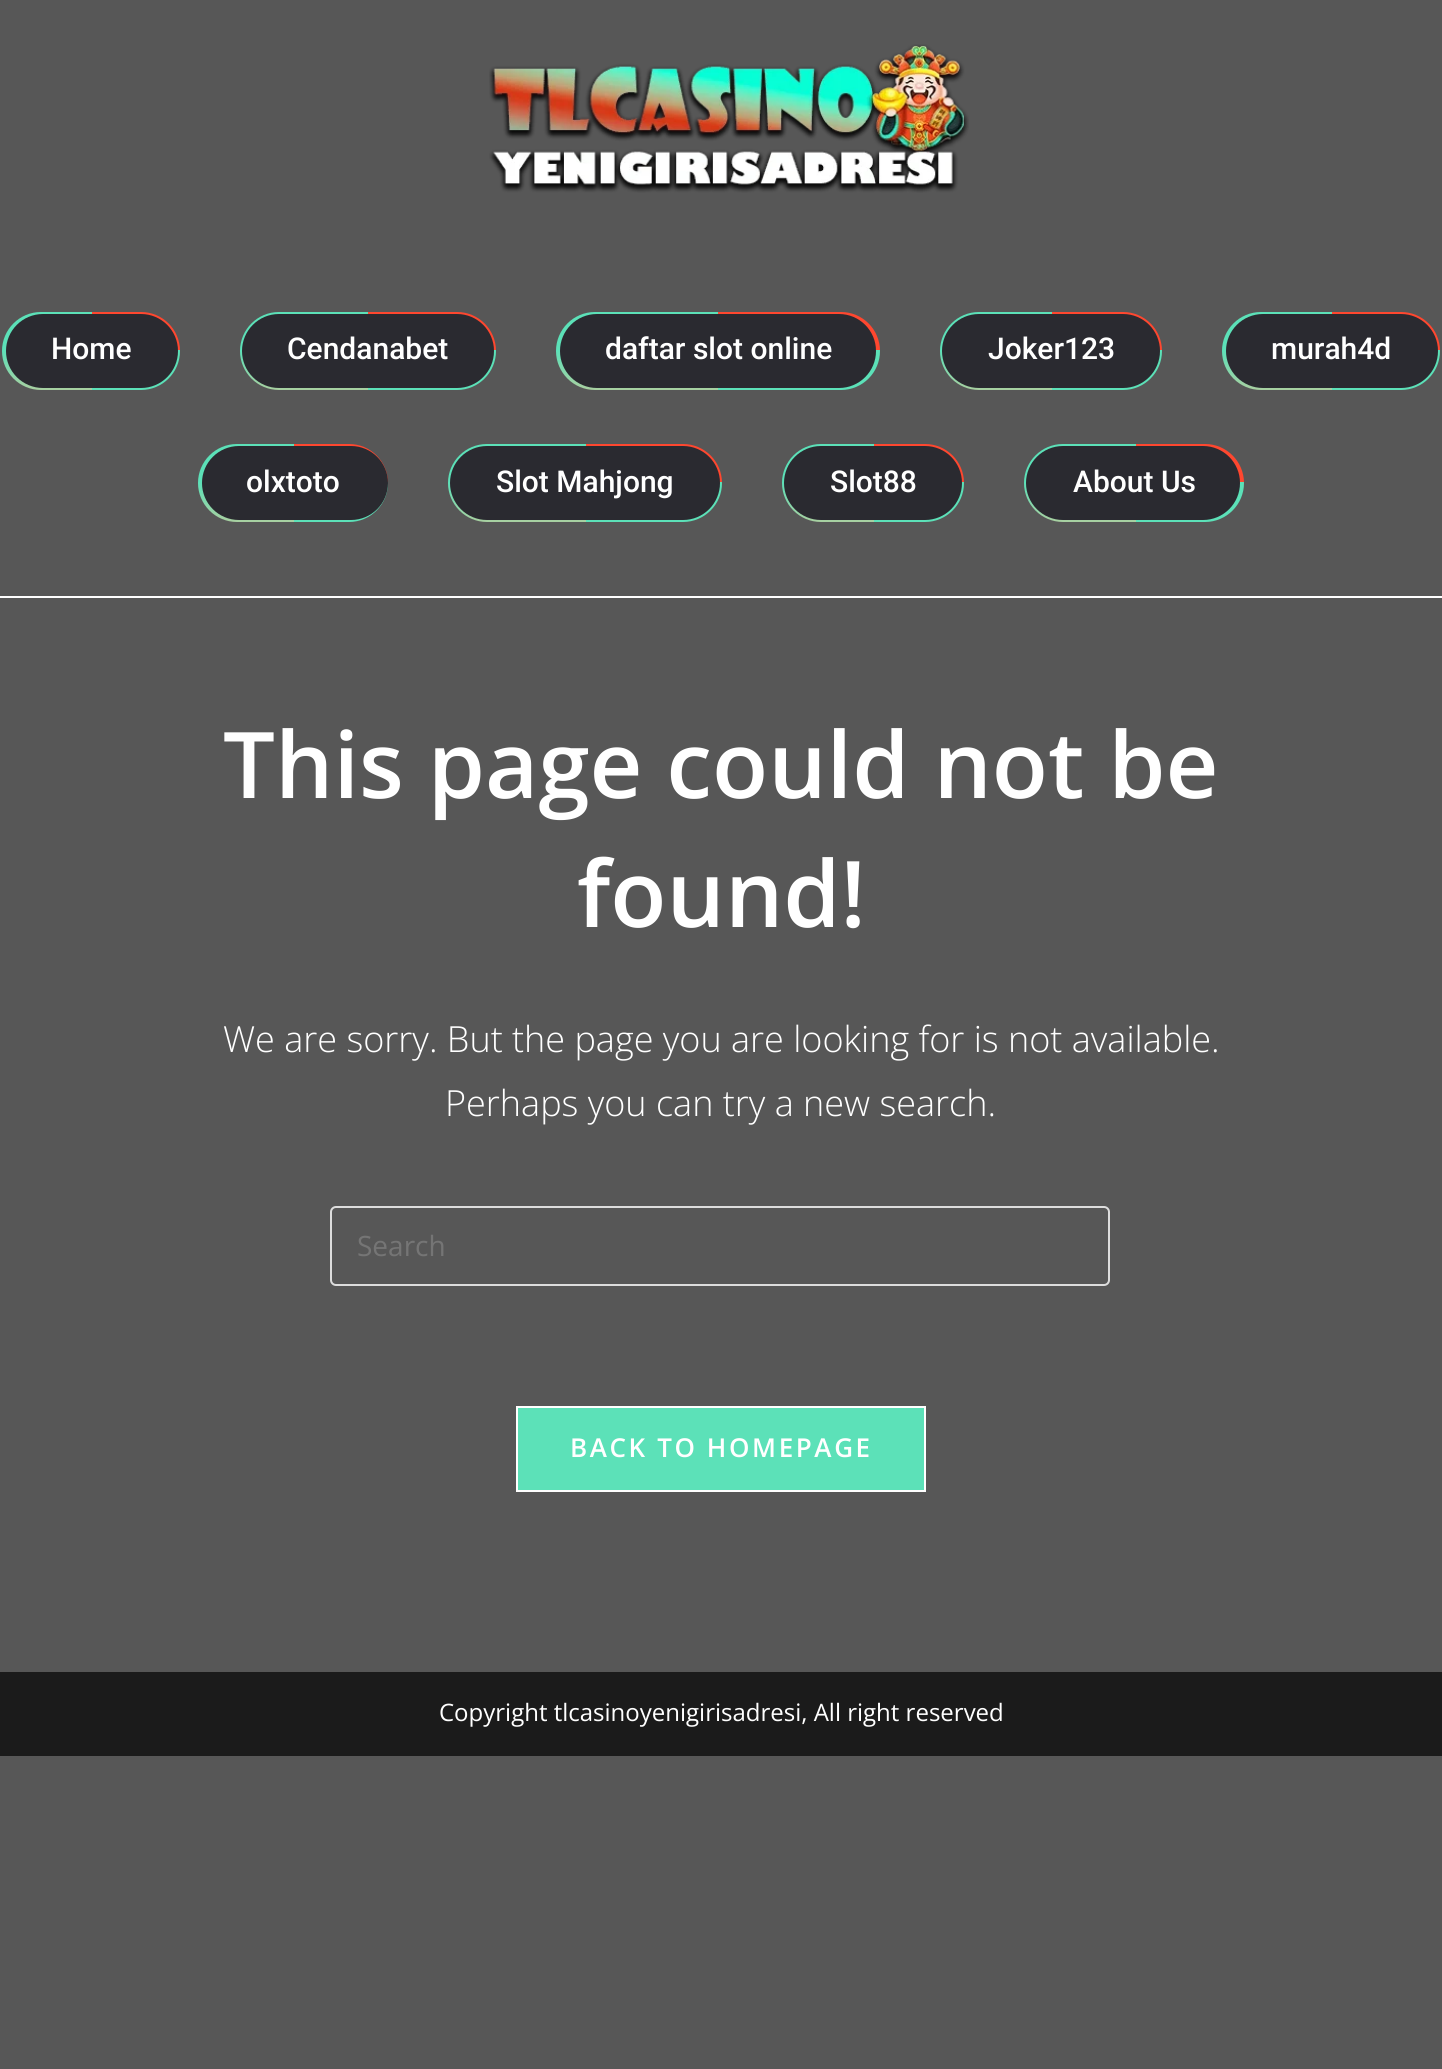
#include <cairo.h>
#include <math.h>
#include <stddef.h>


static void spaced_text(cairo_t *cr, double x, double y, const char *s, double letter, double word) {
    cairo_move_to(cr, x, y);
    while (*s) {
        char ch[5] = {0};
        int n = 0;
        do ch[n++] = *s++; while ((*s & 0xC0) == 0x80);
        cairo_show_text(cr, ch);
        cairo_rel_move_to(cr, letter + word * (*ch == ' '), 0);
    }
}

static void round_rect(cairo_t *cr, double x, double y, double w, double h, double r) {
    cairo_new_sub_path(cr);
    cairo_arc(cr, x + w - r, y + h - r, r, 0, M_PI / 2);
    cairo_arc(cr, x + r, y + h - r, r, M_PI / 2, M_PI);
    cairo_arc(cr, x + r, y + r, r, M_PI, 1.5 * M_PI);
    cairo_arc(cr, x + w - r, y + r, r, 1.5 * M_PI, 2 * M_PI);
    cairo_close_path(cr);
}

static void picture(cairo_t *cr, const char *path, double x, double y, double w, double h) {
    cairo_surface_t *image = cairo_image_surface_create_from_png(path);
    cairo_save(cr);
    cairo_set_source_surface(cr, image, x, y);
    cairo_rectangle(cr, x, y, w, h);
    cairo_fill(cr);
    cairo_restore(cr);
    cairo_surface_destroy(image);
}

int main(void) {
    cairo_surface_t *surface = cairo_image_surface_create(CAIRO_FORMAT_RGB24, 1442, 2069);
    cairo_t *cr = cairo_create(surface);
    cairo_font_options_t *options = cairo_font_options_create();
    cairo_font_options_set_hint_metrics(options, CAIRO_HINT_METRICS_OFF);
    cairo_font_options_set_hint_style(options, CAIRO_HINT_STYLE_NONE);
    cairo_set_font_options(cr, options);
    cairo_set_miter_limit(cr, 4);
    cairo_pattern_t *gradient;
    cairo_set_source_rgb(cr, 0.341, 0.341, 0.341);
    cairo_paint(cr);
    cairo_set_source_rgb(cr, 1, 1, 1);
    cairo_rectangle(cr, 0, 596, 1442, 2);
    cairo_fill(cr);
    picture(cr, "img1.png", 489, 44, 480, 149);
    cairo_save(cr);
    round_rect(cr, 2, 312, 178, 78, 39);
    cairo_clip(cr);
    gradient = cairo_pattern_create_linear(2.5, 350, 2.5, 428);
    cairo_pattern_add_color_stop_rgba(gradient, 0, 0.361, 0.882, 0.722, 1);
    cairo_pattern_add_color_stop_rgba(gradient, 1, 0.945, 0.753, 0.545, 1);
    cairo_set_source(cr, gradient);
    cairo_pattern_destroy(gradient);
    cairo_new_path(cr);
    cairo_move_to(cr, 2, 350);
    cairo_line_to(cr, 92, 350);
    cairo_line_to(cr, 92, 390);
    cairo_line_to(cr, 41, 390);
    cairo_curve_to(cr, 19.5, 390, 2, 372.5, 2, 351);
    cairo_close_path(cr);
    cairo_fill(cr);
    cairo_set_source_rgb(cr, 0.361, 0.882, 0.722);
    cairo_new_path(cr);
    cairo_move_to(cr, 92, 350);
    cairo_line_to(cr, 180, 350);
    cairo_line_to(cr, 180, 351);
    cairo_curve_to(cr, 180, 372.5, 162.5, 390, 141, 390);
    cairo_line_to(cr, 92, 390);
    cairo_close_path(cr);
    cairo_fill(cr);
    cairo_set_source_rgb(cr, 1, 0.278, 0.184);
    cairo_rectangle(cr, 92, 312, 88, 38);
    cairo_fill(cr);
    cairo_set_source_rgb(cr, 0.361, 0.882, 0.722);
    cairo_rectangle(cr, 2, 312, 90, 38);
    cairo_fill(cr);
    cairo_restore(cr);
    cairo_set_source_rgb(cr, 0.165, 0.165, 0.188);
    round_rect(cr, 6, 314, 172, 74, 37);
    cairo_fill(cr);
    cairo_select_font_face(cr, "Roboto Medium", CAIRO_FONT_SLANT_NORMAL, CAIRO_FONT_WEIGHT_NORMAL);
    cairo_set_font_size(cr, 30);
    cairo_set_source_rgb(cr, 1, 1, 1);
    cairo_move_to(cr, 51, 359);
    cairo_show_text(cr, "Home");
    cairo_save(cr);
    round_rect(cr, 240, 312, 256, 78, 39);
    cairo_clip(cr);
    gradient = cairo_pattern_create_linear(239, 350, 239, 428);
    cairo_pattern_add_color_stop_rgba(gradient, 0, 0.361, 0.882, 0.722, 1);
    cairo_pattern_add_color_stop_rgba(gradient, 1, 0.945, 0.753, 0.545, 1);
    cairo_set_source(cr, gradient);
    cairo_pattern_destroy(gradient);
    cairo_new_path(cr);
    cairo_move_to(cr, 240, 350);
    cairo_line_to(cr, 368, 350);
    cairo_line_to(cr, 368, 390);
    cairo_line_to(cr, 279, 390);
    cairo_curve_to(cr, 257.5, 390, 240, 372.5, 240, 351);
    cairo_close_path(cr);
    cairo_fill(cr);
    cairo_set_source_rgb(cr, 0.361, 0.882, 0.722);
    cairo_new_path(cr);
    cairo_move_to(cr, 368, 350);
    cairo_line_to(cr, 496, 350);
    cairo_line_to(cr, 496, 351);
    cairo_curve_to(cr, 496, 372.5, 478.5, 390, 457, 390);
    cairo_line_to(cr, 368, 390);
    cairo_close_path(cr);
    cairo_fill(cr);
    cairo_set_source_rgb(cr, 1, 0.278, 0.184);
    cairo_rectangle(cr, 368, 312, 128, 38);
    cairo_fill(cr);
    cairo_set_source_rgb(cr, 0.361, 0.882, 0.722);
    cairo_rectangle(cr, 240, 312, 128, 38);
    cairo_fill(cr);
    cairo_restore(cr);
    cairo_set_source_rgb(cr, 0.165, 0.165, 0.188);
    round_rect(cr, 242, 314, 252, 74, 37);
    cairo_fill(cr);
    cairo_set_source_rgb(cr, 1, 1, 1);
    cairo_move_to(cr, 287, 359);
    cairo_show_text(cr, "Cendanabet");
    cairo_save(cr);
    round_rect(cr, 556, 312, 324, 78, 39);
    cairo_clip(cr);
    gradient = cairo_pattern_create_linear(556, 350, 556, 428);
    cairo_pattern_add_color_stop_rgba(gradient, 0, 0.361, 0.882, 0.722, 1);
    cairo_pattern_add_color_stop_rgba(gradient, 1, 0.945, 0.753, 0.545, 1);
    cairo_set_source(cr, gradient);
    cairo_pattern_destroy(gradient);
    cairo_new_path(cr);
    cairo_move_to(cr, 556, 350);
    cairo_line_to(cr, 718, 350);
    cairo_line_to(cr, 718, 390);
    cairo_line_to(cr, 595, 390);
    cairo_curve_to(cr, 573.5, 390, 556, 372.5, 556, 351);
    cairo_close_path(cr);
    cairo_fill(cr);
    cairo_set_source_rgb(cr, 0.361, 0.882, 0.722);
    cairo_new_path(cr);
    cairo_move_to(cr, 718, 350);
    cairo_line_to(cr, 880, 350);
    cairo_line_to(cr, 880, 351);
    cairo_curve_to(cr, 880, 372.5, 862.5, 390, 841, 390);
    cairo_line_to(cr, 718, 390);
    cairo_close_path(cr);
    cairo_fill(cr);
    cairo_set_source_rgb(cr, 1, 0.278, 0.184);
    cairo_rectangle(cr, 718, 312, 162, 38);
    cairo_fill(cr);
    cairo_set_source_rgb(cr, 0.361, 0.882, 0.722);
    cairo_rectangle(cr, 556, 312, 162, 38);
    cairo_fill(cr);
    cairo_restore(cr);
    cairo_set_source_rgb(cr, 0.165, 0.165, 0.188);
    round_rect(cr, 560, 314, 316, 74, 37);
    cairo_fill(cr);
    cairo_set_source_rgb(cr, 1, 1, 1);
    cairo_move_to(cr, 605, 359);
    cairo_show_text(cr, "daftar slot online");
    cairo_save(cr);
    round_rect(cr, 940, 312, 222, 78, 39);
    cairo_clip(cr);
    gradient = cairo_pattern_create_linear(940, 350, 940, 428);
    cairo_pattern_add_color_stop_rgba(gradient, 0, 0.361, 0.882, 0.722, 1);
    cairo_pattern_add_color_stop_rgba(gradient, 1, 0.945, 0.753, 0.545, 1);
    cairo_set_source(cr, gradient);
    cairo_pattern_destroy(gradient);
    cairo_new_path(cr);
    cairo_move_to(cr, 940, 350);
    cairo_line_to(cr, 1052, 350);
    cairo_line_to(cr, 1052, 390);
    cairo_line_to(cr, 979, 390);
    cairo_curve_to(cr, 957.5, 390, 940, 372.5, 940, 351);
    cairo_close_path(cr);
    cairo_fill(cr);
    cairo_set_source_rgb(cr, 0.361, 0.882, 0.722);
    cairo_new_path(cr);
    cairo_move_to(cr, 1052, 350);
    cairo_line_to(cr, 1162, 350);
    cairo_line_to(cr, 1162, 351);
    cairo_curve_to(cr, 1162, 372.5, 1144.5, 390, 1123, 390);
    cairo_line_to(cr, 1052, 390);
    cairo_close_path(cr);
    cairo_fill(cr);
    cairo_set_source_rgb(cr, 1, 0.278, 0.184);
    cairo_rectangle(cr, 1052, 312, 110, 38);
    cairo_fill(cr);
    cairo_set_source_rgb(cr, 0.361, 0.882, 0.722);
    cairo_rectangle(cr, 940, 312, 112, 38);
    cairo_fill(cr);
    cairo_restore(cr);
    cairo_set_source_rgb(cr, 0.165, 0.165, 0.188);
    round_rect(cr, 942, 314, 218, 74, 37);
    cairo_fill(cr);
    cairo_set_source_rgb(cr, 1, 1, 1);
    cairo_move_to(cr, 988, 359);
    cairo_show_text(cr, "Joker123");
    cairo_save(cr);
    round_rect(cr, 1222, 312, 218, 78, 39);
    cairo_clip(cr);
    gradient = cairo_pattern_create_linear(1223, 350, 1223, 428);
    cairo_pattern_add_color_stop_rgba(gradient, 0, 0.361, 0.882, 0.722, 1);
    cairo_pattern_add_color_stop_rgba(gradient, 1, 0.945, 0.753, 0.545, 1);
    cairo_set_source(cr, gradient);
    cairo_pattern_destroy(gradient);
    cairo_new_path(cr);
    cairo_move_to(cr, 1222, 350);
    cairo_line_to(cr, 1332, 350);
    cairo_line_to(cr, 1332, 390);
    cairo_line_to(cr, 1261, 390);
    cairo_curve_to(cr, 1239.5, 390, 1222, 372.5, 1222, 351);
    cairo_close_path(cr);
    cairo_fill(cr);
    cairo_set_source_rgb(cr, 0.361, 0.882, 0.722);
    cairo_new_path(cr);
    cairo_move_to(cr, 1332, 350);
    cairo_line_to(cr, 1440, 350);
    cairo_line_to(cr, 1440, 351);
    cairo_curve_to(cr, 1440, 372.5, 1422.5, 390, 1401, 390);
    cairo_line_to(cr, 1332, 390);
    cairo_close_path(cr);
    cairo_fill(cr);
    cairo_set_source_rgb(cr, 1, 0.278, 0.184);
    cairo_rectangle(cr, 1332, 312, 108, 38);
    cairo_fill(cr);
    cairo_set_source_rgb(cr, 0.361, 0.882, 0.722);
    cairo_rectangle(cr, 1222, 312, 110, 38);
    cairo_fill(cr);
    cairo_restore(cr);
    cairo_set_source_rgb(cr, 0.165, 0.165, 0.188);
    round_rect(cr, 1226, 314, 212, 74, 37);
    cairo_fill(cr);
    cairo_set_source_rgb(cr, 1, 1, 1);
    cairo_move_to(cr, 1271, 359);
    cairo_show_text(cr, "murah4d");
    cairo_save(cr);
    round_rect(cr, 198, 444, 190, 78, 39);
    cairo_clip(cr);
    gradient = cairo_pattern_create_linear(199, 482, 199, 560);
    cairo_pattern_add_color_stop_rgba(gradient, 0, 0.361, 0.882, 0.722, 1);
    cairo_pattern_add_color_stop_rgba(gradient, 1, 0.945, 0.753, 0.545, 1);
    cairo_set_source(cr, gradient);
    cairo_pattern_destroy(gradient);
    cairo_new_path(cr);
    cairo_move_to(cr, 198, 482);
    cairo_line_to(cr, 294, 482);
    cairo_line_to(cr, 294, 522);
    cairo_line_to(cr, 237, 522);
    cairo_curve_to(cr, 215.5, 522, 198, 504.5, 198, 483);
    cairo_close_path(cr);
    cairo_fill(cr);
    cairo_set_source_rgb(cr, 0.361, 0.882, 0.722);
    cairo_new_path(cr);
    cairo_move_to(cr, 294, 482);
    cairo_line_to(cr, 388, 482);
    cairo_line_to(cr, 388, 483);
    cairo_curve_to(cr, 388, 504.5, 370.5, 522, 349, 522);
    cairo_line_to(cr, 294, 522);
    cairo_close_path(cr);
    cairo_fill(cr);
    cairo_set_source_rgb(cr, 1, 0.278, 0.184);
    cairo_rectangle(cr, 294, 444, 94, 38);
    cairo_fill(cr);
    cairo_set_source_rgb(cr, 0.361, 0.882, 0.722);
    cairo_rectangle(cr, 198, 444, 96, 38);
    cairo_fill(cr);
    cairo_set_source_rgb(cr, 0.165, 0.165, 0.188);
    round_rect(cr, 202, 446, 186, 74, 37);
    cairo_fill(cr);
    cairo_restore(cr);
    cairo_move_to(cr, 246, 492);
    cairo_show_text(cr, "olxtoto");
    cairo_save(cr);
    round_rect(cr, 448, 444, 274, 78, 39);
    cairo_clip(cr);
    gradient = cairo_pattern_create_linear(449, 482, 449, 560);
    cairo_pattern_add_color_stop_rgba(gradient, 0, 0.361, 0.882, 0.722, 1);
    cairo_pattern_add_color_stop_rgba(gradient, 1, 0.945, 0.753, 0.545, 1);
    cairo_set_source(cr, gradient);
    cairo_pattern_destroy(gradient);
    cairo_new_path(cr);
    cairo_move_to(cr, 448, 482);
    cairo_line_to(cr, 586, 482);
    cairo_line_to(cr, 586, 522);
    cairo_line_to(cr, 487, 522);
    cairo_curve_to(cr, 465.5, 522, 448, 504.5, 448, 483);
    cairo_close_path(cr);
    cairo_fill(cr);
    cairo_set_source_rgb(cr, 0.361, 0.882, 0.722);
    cairo_new_path(cr);
    cairo_move_to(cr, 586, 482);
    cairo_line_to(cr, 722, 482);
    cairo_line_to(cr, 722, 483);
    cairo_curve_to(cr, 722, 504.5, 704.5, 522, 683, 522);
    cairo_line_to(cr, 586, 522);
    cairo_close_path(cr);
    cairo_fill(cr);
    cairo_set_source_rgb(cr, 1, 0.278, 0.184);
    cairo_rectangle(cr, 586, 444, 136, 38);
    cairo_fill(cr);
    cairo_set_source_rgb(cr, 0.361, 0.882, 0.722);
    cairo_rectangle(cr, 448, 444, 138, 38);
    cairo_fill(cr);
    cairo_restore(cr);
    cairo_set_source_rgb(cr, 0.165, 0.165, 0.188);
    round_rect(cr, 450, 446, 270, 74, 37);
    cairo_fill(cr);
    cairo_set_source_rgb(cr, 1, 1, 1);
    cairo_move_to(cr, 496, 492);
    cairo_show_text(cr, "Slot Mahjong");
    cairo_save(cr);
    round_rect(cr, 782, 444, 182, 78, 39);
    cairo_clip(cr);
    gradient = cairo_pattern_create_linear(782, 482, 782, 560);
    cairo_pattern_add_color_stop_rgba(gradient, 0, 0.361, 0.882, 0.722, 1);
    cairo_pattern_add_color_stop_rgba(gradient, 1, 0.945, 0.753, 0.545, 1);
    cairo_set_source(cr, gradient);
    cairo_pattern_destroy(gradient);
    cairo_new_path(cr);
    cairo_move_to(cr, 782, 482);
    cairo_line_to(cr, 874, 482);
    cairo_line_to(cr, 874, 522);
    cairo_line_to(cr, 821, 522);
    cairo_curve_to(cr, 799.5, 522, 782, 504.5, 782, 483);
    cairo_close_path(cr);
    cairo_fill(cr);
    cairo_set_source_rgb(cr, 0.361, 0.882, 0.722);
    cairo_new_path(cr);
    cairo_move_to(cr, 874, 482);
    cairo_line_to(cr, 964, 482);
    cairo_line_to(cr, 964, 483);
    cairo_curve_to(cr, 964, 504.5, 946.5, 522, 925, 522);
    cairo_line_to(cr, 874, 522);
    cairo_close_path(cr);
    cairo_fill(cr);
    cairo_set_source_rgb(cr, 1, 0.278, 0.184);
    cairo_rectangle(cr, 874, 444, 90, 38);
    cairo_fill(cr);
    cairo_set_source_rgb(cr, 0.361, 0.882, 0.722);
    cairo_rectangle(cr, 782, 444, 92, 38);
    cairo_fill(cr);
    cairo_restore(cr);
    cairo_set_source_rgb(cr, 0.165, 0.165, 0.188);
    round_rect(cr, 784, 446, 178, 74, 37);
    cairo_fill(cr);
    cairo_set_source_rgb(cr, 1, 1, 1);
    cairo_move_to(cr, 830, 492);
    cairo_show_text(cr, "Slot88");
    cairo_save(cr);
    round_rect(cr, 1024, 444, 220, 78, 39);
    cairo_clip(cr);
    gradient = cairo_pattern_create_linear(1026, 482, 1026, 560);
    cairo_pattern_add_color_stop_rgba(gradient, 0, 0.361, 0.882, 0.722, 1);
    cairo_pattern_add_color_stop_rgba(gradient, 1, 0.945, 0.753, 0.545, 1);
    cairo_set_source(cr, gradient);
    cairo_pattern_destroy(gradient);
    cairo_new_path(cr);
    cairo_move_to(cr, 1024, 482);
    cairo_line_to(cr, 1136, 482);
    cairo_line_to(cr, 1136, 522);
    cairo_line_to(cr, 1063, 522);
    cairo_curve_to(cr, 1041.5, 522, 1024, 504.5, 1024, 483);
    cairo_close_path(cr);
    cairo_fill(cr);
    cairo_set_source_rgb(cr, 0.361, 0.882, 0.722);
    cairo_new_path(cr);
    cairo_move_to(cr, 1136, 482);
    cairo_line_to(cr, 1244, 482);
    cairo_line_to(cr, 1244, 483);
    cairo_curve_to(cr, 1244, 504.5, 1226.5, 522, 1205, 522);
    cairo_line_to(cr, 1136, 522);
    cairo_close_path(cr);
    cairo_fill(cr);
    cairo_set_source_rgb(cr, 1, 0.278, 0.184);
    cairo_rectangle(cr, 1136, 444, 108, 38);
    cairo_fill(cr);
    cairo_set_source_rgb(cr, 0.361, 0.882, 0.722);
    cairo_rectangle(cr, 1024, 444, 112, 38);
    cairo_fill(cr);
    cairo_restore(cr);
    cairo_set_source_rgb(cr, 0.165, 0.165, 0.188);
    round_rect(cr, 1026, 446, 214, 74, 37);
    cairo_fill(cr);
    cairo_set_source_rgb(cr, 1, 1, 1);
    cairo_move_to(cr, 1073, 492);
    cairo_show_text(cr, "About Us");
    cairo_select_font_face(cr, "Open Sans SemiBold", CAIRO_FONT_SLANT_NORMAL, CAIRO_FONT_WEIGHT_NORMAL);
    cairo_set_font_size(cr, 92);
    cairo_move_to(cr, 223, 798);
    cairo_show_text(cr, "This page could not be");
    cairo_move_to(cr, 577, 927);
    cairo_show_text(cr, "found!");
    cairo_select_font_face(cr, "Open Sans Light", CAIRO_FONT_SLANT_NORMAL, CAIRO_FONT_WEIGHT_NORMAL);
    cairo_set_font_size(cr, 36);
    cairo_move_to(cr, 223, 1052);
    cairo_show_text(cr, "We are sorry. But the page you are looking for is not available.");
    cairo_move_to(cr, 445, 1116);
    cairo_show_text(cr, "Perhaps you can try a new search.");
    round_rect(cr, 331, 1207, 778, 78, 5);
    cairo_set_source_rgb(cr, 0.867, 0.867, 0.867);
    cairo_stroke(cr);
    cairo_select_font_face(cr, "Open Sans", CAIRO_FONT_SLANT_NORMAL, CAIRO_FONT_WEIGHT_NORMAL);
    cairo_set_font_size(cr, 28);
    cairo_set_source_rgb(cr, 0.459, 0.459, 0.459);
    cairo_move_to(cr, 357, 1256);
    cairo_show_text(cr, "Search");
    cairo_set_source_rgb(cr, 0.361, 0.882, 0.722);
    cairo_rectangle(cr, 517, 1407, 408, 84);
    cairo_fill_preserve(cr);
    cairo_set_source_rgb(cr, 1, 1, 1);
    cairo_stroke(cr);
    cairo_select_font_face(cr, "Open Sans SemiBold", CAIRO_FONT_SLANT_NORMAL, CAIRO_FONT_WEIGHT_NORMAL);
    cairo_set_font_size(cr, 26);
    spaced_text(cr, 570, 1457, "BACK TO HOMEPAGE", 2.6, 0);
    cairo_set_source_rgb(cr, 0.106, 0.106, 0.106);
    cairo_rectangle(cr, 0, 1672, 1442, 84);
    cairo_fill(cr);
    cairo_select_font_face(cr, "Open Sans", CAIRO_FONT_SLANT_NORMAL, CAIRO_FONT_WEIGHT_NORMAL);
    cairo_set_font_size(cr, 24);
    cairo_set_source_rgb(cr, 1, 1, 1);
    cairo_move_to(cr, 439, 1721);
    cairo_show_text(cr, "Copyright tlcasinoyenigirisadresi, All right reserved");
    cairo_surface_write_to_png(surface, "page.png");
    cairo_font_options_destroy(options);
    cairo_destroy(cr);
    cairo_surface_destroy(surface);
    return 0;
}
